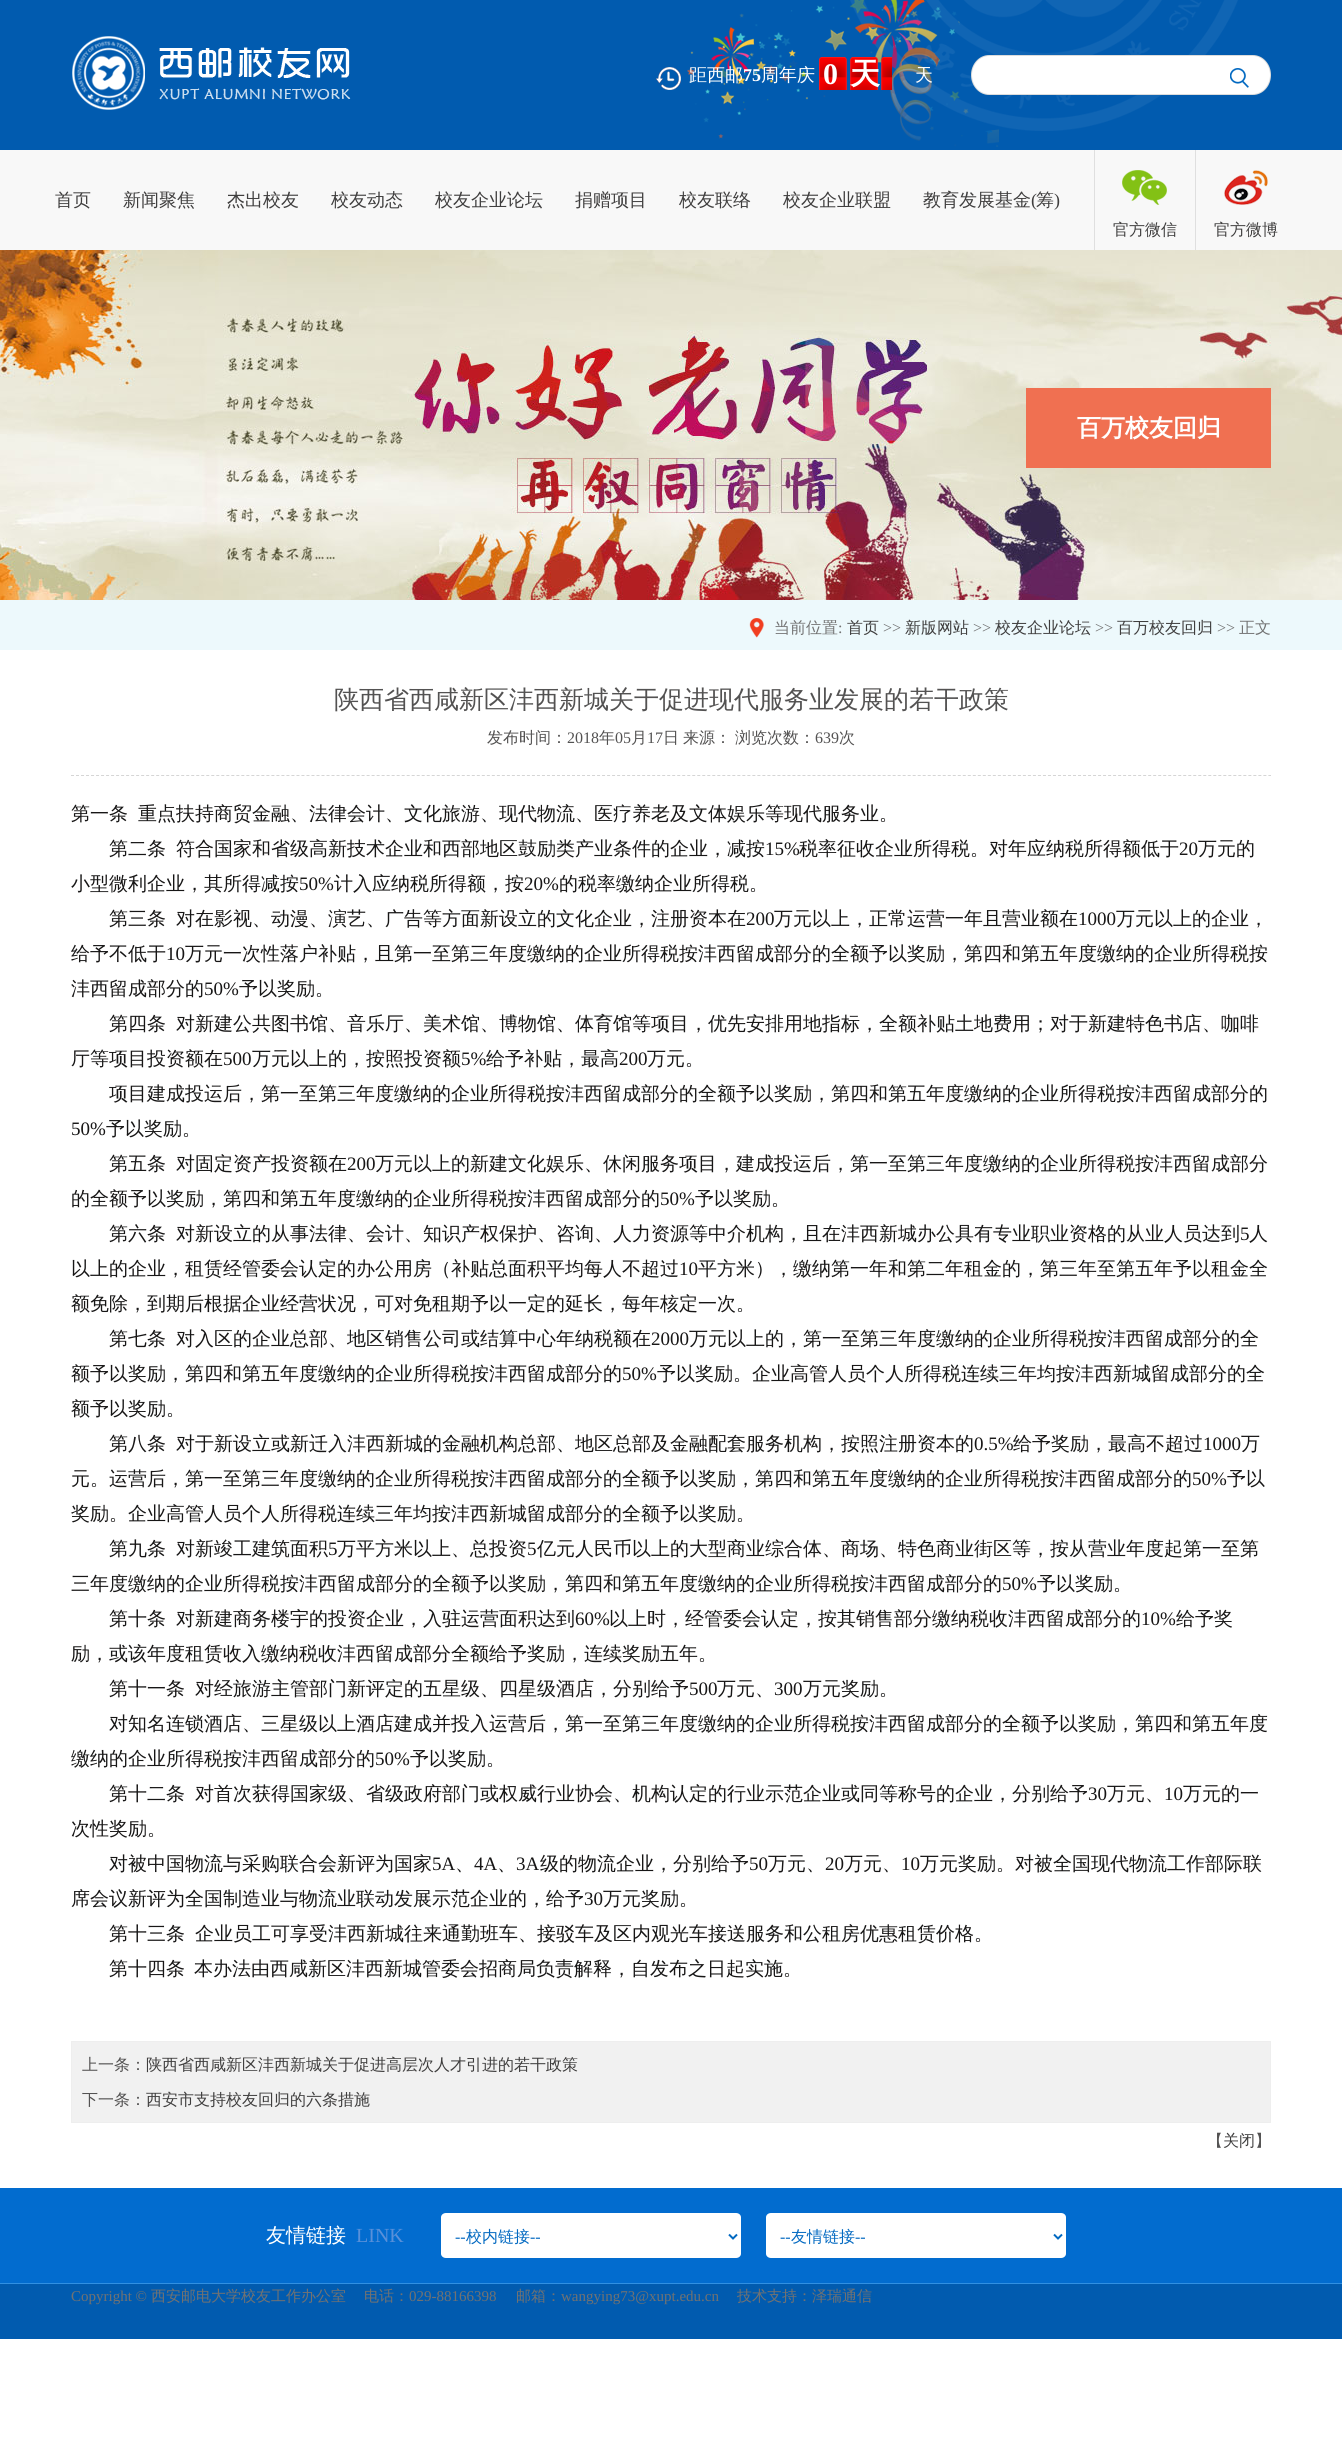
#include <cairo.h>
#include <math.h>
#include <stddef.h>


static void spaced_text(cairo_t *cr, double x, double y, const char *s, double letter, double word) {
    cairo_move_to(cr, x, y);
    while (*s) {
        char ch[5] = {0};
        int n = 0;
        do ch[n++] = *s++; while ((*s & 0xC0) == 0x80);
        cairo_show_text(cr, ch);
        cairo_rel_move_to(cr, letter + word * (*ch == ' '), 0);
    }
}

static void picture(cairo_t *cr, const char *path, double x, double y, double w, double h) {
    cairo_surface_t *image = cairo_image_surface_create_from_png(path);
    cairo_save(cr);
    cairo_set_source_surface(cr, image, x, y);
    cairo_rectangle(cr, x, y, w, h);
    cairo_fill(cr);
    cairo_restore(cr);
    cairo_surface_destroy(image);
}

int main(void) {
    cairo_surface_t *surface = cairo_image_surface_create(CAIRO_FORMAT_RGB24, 1342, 2445);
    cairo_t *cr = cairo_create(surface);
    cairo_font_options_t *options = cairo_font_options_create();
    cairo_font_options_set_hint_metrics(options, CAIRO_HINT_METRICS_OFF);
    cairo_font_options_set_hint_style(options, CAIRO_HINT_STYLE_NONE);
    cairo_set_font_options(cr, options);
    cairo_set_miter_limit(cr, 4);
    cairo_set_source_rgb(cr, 1, 1, 1);
    cairo_paint(cr);
    cairo_set_source_rgb(cr, 0.004, 0.357, 0.686);
    cairo_rectangle(cr, 0, 0, 1342, 150);
    cairo_fill(cr);
    picture(cr, "img1.png", 687, 0, 551, 147);
    picture(cr, "img2.png", 72, 36, 279, 74);
    picture(cr, "img3.png", 656, 67, 25, 23);
    cairo_select_font_face(cr, "WenQuanYi Zen Hei Medium", CAIRO_FONT_SLANT_NORMAL, CAIRO_FONT_WEIGHT_NORMAL);
    cairo_set_font_size(cr, 18);
    cairo_set_source_rgb(cr, 1, 1, 1);
    cairo_move_to(cr, 689, 81);
    cairo_show_text(cr, "距西邮");
    cairo_select_font_face(cr, "Liberation Serif", CAIRO_FONT_SLANT_NORMAL, CAIRO_FONT_WEIGHT_BOLD);
    cairo_move_to(cr, 743, 81);
    cairo_show_text(cr, "75");
    cairo_select_font_face(cr, "WenQuanYi Zen Hei Medium", CAIRO_FONT_SLANT_NORMAL, CAIRO_FONT_WEIGHT_NORMAL);
    cairo_move_to(cr, 761, 81);
    cairo_show_text(cr, "周年庆");
    picture(cr, "img4.png", 819, 57, 73, 33);
    cairo_select_font_face(cr, "Liberation Serif", CAIRO_FONT_SLANT_NORMAL, CAIRO_FONT_WEIGHT_BOLD);
    cairo_set_font_size(cr, 30);
    spaced_text(cr, 823, 84, "0", 12, 0);
    cairo_select_font_face(cr, "WenQuanYi Zen Hei", CAIRO_FONT_SLANT_NORMAL, CAIRO_FONT_WEIGHT_BOLD);
    spaced_text(cr, 850, 84, "天", 12, 0);
    cairo_select_font_face(cr, "WenQuanYi Zen Hei Medium", CAIRO_FONT_SLANT_NORMAL, CAIRO_FONT_WEIGHT_NORMAL);
    cairo_set_font_size(cr, 18);
    cairo_move_to(cr, 915, 81);
    cairo_show_text(cr, "天");
    picture(cr, "img5.png", 971, 55, 300, 40);
    picture(cr, "img6.png", 1230, 68, 19, 20);
    cairo_set_source_rgb(cr, 0.969, 0.969, 0.969);
    cairo_rectangle(cr, 0, 150, 1342, 100);
    cairo_fill(cr);
    cairo_set_source_rgb(cr, 0.247, 0.243, 0.243);
    cairo_move_to(cr, 55, 206);
    cairo_show_text(cr, "首页");
    cairo_move_to(cr, 123, 206);
    cairo_show_text(cr, "新闻聚焦");
    cairo_move_to(cr, 227, 206);
    cairo_show_text(cr, "杰出校友");
    cairo_move_to(cr, 331, 206);
    cairo_show_text(cr, "校友动态");
    cairo_move_to(cr, 435, 206);
    cairo_show_text(cr, "校友企业论坛");
    cairo_move_to(cr, 575, 206);
    cairo_show_text(cr, "捐赠项目");
    cairo_move_to(cr, 679, 206);
    cairo_show_text(cr, "校友联络");
    cairo_move_to(cr, 783, 206);
    cairo_show_text(cr, "校友企业联盟");
    cairo_move_to(cr, 923, 206);
    cairo_show_text(cr, "教育发展基金");
    cairo_select_font_face(cr, "Liberation Serif", CAIRO_FONT_SLANT_NORMAL, CAIRO_FONT_WEIGHT_NORMAL);
    cairo_move_to(cr, 1031, 206);
    cairo_show_text(cr, "(");
    cairo_select_font_face(cr, "WenQuanYi Zen Hei Medium", CAIRO_FONT_SLANT_NORMAL, CAIRO_FONT_WEIGHT_NORMAL);
    cairo_move_to(cr, 1036, 206);
    cairo_show_text(cr, "筹");
    cairo_select_font_face(cr, "Liberation Serif", CAIRO_FONT_SLANT_NORMAL, CAIRO_FONT_WEIGHT_NORMAL);
    cairo_move_to(cr, 1054, 206);
    cairo_show_text(cr, ")");
    cairo_set_source_rgb(cr, 0.875, 0.875, 0.875);
    cairo_rectangle(cr, 1094, 150, 1, 100);
    cairo_fill(cr);
    picture(cr, "img7.png", 1122, 170, 45, 35);
    cairo_select_font_face(cr, "WenQuanYi Zen Hei Medium", CAIRO_FONT_SLANT_NORMAL, CAIRO_FONT_WEIGHT_NORMAL);
    cairo_set_font_size(cr, 16);
    cairo_set_source_rgb(cr, 0.247, 0.243, 0.243);
    cairo_move_to(cr, 1113, 235);
    cairo_show_text(cr, "官方微信");
    cairo_set_source_rgb(cr, 0.875, 0.875, 0.875);
    cairo_rectangle(cr, 1195, 150, 1, 100);
    cairo_fill(cr);
    picture(cr, "img8.png", 1224, 170, 44, 35);
    cairo_set_source_rgb(cr, 0.247, 0.243, 0.243);
    cairo_move_to(cr, 1214, 235);
    cairo_show_text(cr, "官方微博");
    picture(cr, "img9.png", 0, 250, 1342, 350);
    cairo_set_source_rgb(cr, 0.941, 0.439, 0.318);
    cairo_rectangle(cr, 1026, 388, 245, 80);
    cairo_fill(cr);
    cairo_select_font_face(cr, "WenQuanYi Zen Hei", CAIRO_FONT_SLANT_NORMAL, CAIRO_FONT_WEIGHT_BOLD);
    cairo_set_font_size(cr, 24);
    cairo_set_source_rgb(cr, 1, 1, 1);
    cairo_move_to(cr, 1077, 436);
    cairo_show_text(cr, "百万校友回归");
    cairo_set_source_rgb(cr, 0.929, 0.976, 0.988);
    cairo_rectangle(cr, 0, 600, 1342, 50);
    cairo_fill(cr);
    picture(cr, "img10.png", 749, 618, 15, 20);
    cairo_select_font_face(cr, "WenQuanYi Zen Hei Medium", CAIRO_FONT_SLANT_NORMAL, CAIRO_FONT_WEIGHT_NORMAL);
    cairo_set_font_size(cr, 16);
    cairo_set_source_rgb(cr, 0.447, 0.447, 0.447);
    cairo_move_to(cr, 774, 633);
    cairo_show_text(cr, "当前位置");
    cairo_select_font_face(cr, "Liberation Serif", CAIRO_FONT_SLANT_NORMAL, CAIRO_FONT_WEIGHT_NORMAL);
    cairo_move_to(cr, 838, 633);
    cairo_show_text(cr, ":");
    cairo_select_font_face(cr, "WenQuanYi Zen Hei Medium", CAIRO_FONT_SLANT_NORMAL, CAIRO_FONT_WEIGHT_NORMAL);
    cairo_set_source_rgb(cr, 0.247, 0.243, 0.243);
    cairo_move_to(cr, 847, 633);
    cairo_show_text(cr, "首页");
    cairo_select_font_face(cr, "Liberation Serif", CAIRO_FONT_SLANT_NORMAL, CAIRO_FONT_WEIGHT_NORMAL);
    cairo_set_source_rgb(cr, 0.447, 0.447, 0.447);
    cairo_move_to(cr, 883, 633);
    cairo_show_text(cr, ">>");
    cairo_select_font_face(cr, "WenQuanYi Zen Hei Medium", CAIRO_FONT_SLANT_NORMAL, CAIRO_FONT_WEIGHT_NORMAL);
    cairo_set_source_rgb(cr, 0.247, 0.243, 0.243);
    cairo_move_to(cr, 905, 633);
    cairo_show_text(cr, "新版网站");
    cairo_select_font_face(cr, "Liberation Serif", CAIRO_FONT_SLANT_NORMAL, CAIRO_FONT_WEIGHT_NORMAL);
    cairo_set_source_rgb(cr, 0.447, 0.447, 0.447);
    cairo_move_to(cr, 973, 633);
    cairo_show_text(cr, ">>");
    cairo_select_font_face(cr, "WenQuanYi Zen Hei Medium", CAIRO_FONT_SLANT_NORMAL, CAIRO_FONT_WEIGHT_NORMAL);
    cairo_set_source_rgb(cr, 0.247, 0.243, 0.243);
    cairo_move_to(cr, 995, 633);
    cairo_show_text(cr, "校友企业论坛");
    cairo_select_font_face(cr, "Liberation Serif", CAIRO_FONT_SLANT_NORMAL, CAIRO_FONT_WEIGHT_NORMAL);
    cairo_set_source_rgb(cr, 0.447, 0.447, 0.447);
    cairo_move_to(cr, 1095, 633);
    cairo_show_text(cr, ">>");
    cairo_select_font_face(cr, "WenQuanYi Zen Hei Medium", CAIRO_FONT_SLANT_NORMAL, CAIRO_FONT_WEIGHT_NORMAL);
    cairo_set_source_rgb(cr, 0.247, 0.243, 0.243);
    cairo_move_to(cr, 1117, 633);
    cairo_show_text(cr, "百万校友回归");
    cairo_select_font_face(cr, "Liberation Serif", CAIRO_FONT_SLANT_NORMAL, CAIRO_FONT_WEIGHT_NORMAL);
    cairo_set_source_rgb(cr, 0.447, 0.447, 0.447);
    cairo_move_to(cr, 1217, 633);
    cairo_show_text(cr, ">>");
    cairo_select_font_face(cr, "WenQuanYi Zen Hei Medium", CAIRO_FONT_SLANT_NORMAL, CAIRO_FONT_WEIGHT_NORMAL);
    cairo_move_to(cr, 1239, 633);
    cairo_show_text(cr, "正文");
    cairo_new_path(cr);
    cairo_move_to(cr, 71, 775.5);
    cairo_line_to(cr, 1271, 775.5);
    cairo_set_source_rgb(cr, 0.835, 0.835, 0.835);
    cairo_set_line_width(cr, 1);
    cairo_set_dash(cr, (double[]){3, 2.01}, 2, 0);
    cairo_stroke(cr);
    cairo_set_font_size(cr, 25);
    cairo_set_source_rgb(cr, 0.325, 0.322, 0.322);
    cairo_move_to(cr, 334, 708);
    cairo_show_text(cr, "陕西省西咸新区沣西新城关于促进现代服务业发展的若干政策");
    cairo_set_font_size(cr, 16);
    cairo_move_to(cr, 487, 743);
    cairo_show_text(cr, "发布时间：");
    cairo_select_font_face(cr, "Liberation Serif", CAIRO_FONT_SLANT_NORMAL, CAIRO_FONT_WEIGHT_NORMAL);
    cairo_move_to(cr, 567, 743);
    cairo_show_text(cr, "2018");
    cairo_select_font_face(cr, "WenQuanYi Zen Hei Medium", CAIRO_FONT_SLANT_NORMAL, CAIRO_FONT_WEIGHT_NORMAL);
    cairo_move_to(cr, 599, 743);
    cairo_show_text(cr, "年");
    cairo_select_font_face(cr, "Liberation Serif", CAIRO_FONT_SLANT_NORMAL, CAIRO_FONT_WEIGHT_NORMAL);
    cairo_move_to(cr, 615, 743);
    cairo_show_text(cr, "05");
    cairo_select_font_face(cr, "WenQuanYi Zen Hei Medium", CAIRO_FONT_SLANT_NORMAL, CAIRO_FONT_WEIGHT_NORMAL);
    cairo_move_to(cr, 631, 743);
    cairo_show_text(cr, "月");
    cairo_select_font_face(cr, "Liberation Serif", CAIRO_FONT_SLANT_NORMAL, CAIRO_FONT_WEIGHT_NORMAL);
    cairo_move_to(cr, 647, 743);
    cairo_show_text(cr, "17");
    cairo_select_font_face(cr, "WenQuanYi Zen Hei Medium", CAIRO_FONT_SLANT_NORMAL, CAIRO_FONT_WEIGHT_NORMAL);
    cairo_move_to(cr, 663, 743);
    cairo_show_text(cr, "日");
    cairo_move_to(cr, 683, 743);
    cairo_show_text(cr, "来源：");
    cairo_move_to(cr, 735, 743);
    cairo_show_text(cr, "浏览次数：");
    cairo_select_font_face(cr, "Liberation Serif", CAIRO_FONT_SLANT_NORMAL, CAIRO_FONT_WEIGHT_NORMAL);
    cairo_move_to(cr, 815, 743);
    cairo_show_text(cr, "639");
    cairo_select_font_face(cr, "WenQuanYi Zen Hei Medium", CAIRO_FONT_SLANT_NORMAL, CAIRO_FONT_WEIGHT_NORMAL);
    cairo_move_to(cr, 839, 743);
    cairo_show_text(cr, "次");
    cairo_set_font_size(cr, 19);
    cairo_set_source_rgb(cr, 0.09, 0.086, 0.086);
    cairo_move_to(cr, 71, 820);
    cairo_show_text(cr, "第一条");
    cairo_move_to(cr, 138, 820);
    cairo_show_text(cr, "重点扶持商贸金融、法律会计、文化旅游、现代物流、医疗养老及文体娱乐等现代服务业。");
    cairo_move_to(cr, 109, 855);
    cairo_show_text(cr, "第二条");
    cairo_move_to(cr, 176, 855);
    cairo_show_text(cr, "符合国家和省级高新技术企业和西部地区鼓励类产业条件的企业，减按");
    cairo_select_font_face(cr, "Liberation Serif", CAIRO_FONT_SLANT_NORMAL, CAIRO_FONT_WEIGHT_NORMAL);
    cairo_move_to(cr, 765, 855);
    cairo_show_text(cr, "15%");
    cairo_select_font_face(cr, "WenQuanYi Zen Hei Medium", CAIRO_FONT_SLANT_NORMAL, CAIRO_FONT_WEIGHT_NORMAL);
    cairo_move_to(cr, 799, 855);
    cairo_show_text(cr, "税率征收企业所得税。对年应纳税所得额低于");
    cairo_select_font_face(cr, "Liberation Serif", CAIRO_FONT_SLANT_NORMAL, CAIRO_FONT_WEIGHT_NORMAL);
    cairo_move_to(cr, 1179, 855);
    cairo_show_text(cr, "20");
    cairo_select_font_face(cr, "WenQuanYi Zen Hei Medium", CAIRO_FONT_SLANT_NORMAL, CAIRO_FONT_WEIGHT_NORMAL);
    cairo_move_to(cr, 1198, 855);
    cairo_show_text(cr, "万元的");
    cairo_move_to(cr, 71, 890);
    cairo_show_text(cr, "小型微利企业，其所得减按");
    cairo_select_font_face(cr, "Liberation Serif", CAIRO_FONT_SLANT_NORMAL, CAIRO_FONT_WEIGHT_NORMAL);
    cairo_move_to(cr, 299, 890);
    cairo_show_text(cr, "50%");
    cairo_select_font_face(cr, "WenQuanYi Zen Hei Medium", CAIRO_FONT_SLANT_NORMAL, CAIRO_FONT_WEIGHT_NORMAL);
    cairo_move_to(cr, 334, 890);
    cairo_show_text(cr, "计入应纳税所得额，按");
    cairo_select_font_face(cr, "Liberation Serif", CAIRO_FONT_SLANT_NORMAL, CAIRO_FONT_WEIGHT_NORMAL);
    cairo_move_to(cr, 524, 890);
    cairo_show_text(cr, "20%");
    cairo_select_font_face(cr, "WenQuanYi Zen Hei Medium", CAIRO_FONT_SLANT_NORMAL, CAIRO_FONT_WEIGHT_NORMAL);
    cairo_move_to(cr, 559, 890);
    cairo_show_text(cr, "的税率缴纳企业所得税。");
    cairo_move_to(cr, 109, 925);
    cairo_show_text(cr, "第三条");
    cairo_move_to(cr, 176, 925);
    cairo_show_text(cr, "对在影视、动漫、演艺、广告等方面新设立的文化企业，注册资本在");
    cairo_select_font_face(cr, "Liberation Serif", CAIRO_FONT_SLANT_NORMAL, CAIRO_FONT_WEIGHT_NORMAL);
    cairo_move_to(cr, 746, 925);
    cairo_show_text(cr, "200");
    cairo_select_font_face(cr, "WenQuanYi Zen Hei Medium", CAIRO_FONT_SLANT_NORMAL, CAIRO_FONT_WEIGHT_NORMAL);
    cairo_move_to(cr, 774, 925);
    cairo_show_text(cr, "万元以上，正常运营一年且营业额在");
    cairo_select_font_face(cr, "Liberation Serif", CAIRO_FONT_SLANT_NORMAL, CAIRO_FONT_WEIGHT_NORMAL);
    cairo_move_to(cr, 1078, 925);
    cairo_show_text(cr, "1000");
    cairo_select_font_face(cr, "WenQuanYi Zen Hei Medium", CAIRO_FONT_SLANT_NORMAL, CAIRO_FONT_WEIGHT_NORMAL);
    cairo_move_to(cr, 1116, 925);
    cairo_show_text(cr, "万元以上的企业，");
    cairo_move_to(cr, 71, 960);
    cairo_show_text(cr, "给予不低于");
    cairo_select_font_face(cr, "Liberation Serif", CAIRO_FONT_SLANT_NORMAL, CAIRO_FONT_WEIGHT_NORMAL);
    cairo_move_to(cr, 166, 960);
    cairo_show_text(cr, "10");
    cairo_select_font_face(cr, "WenQuanYi Zen Hei Medium", CAIRO_FONT_SLANT_NORMAL, CAIRO_FONT_WEIGHT_NORMAL);
    cairo_move_to(cr, 185, 960);
    cairo_show_text(cr, "万元一次性落户补贴，且第一至第三年度缴纳的企业所得税按沣西留成部分的全额予以奖励，第四和第五年度缴纳的企业所得税按");
    cairo_move_to(cr, 71, 995);
    cairo_show_text(cr, "沣西留成部分的");
    cairo_select_font_face(cr, "Liberation Serif", CAIRO_FONT_SLANT_NORMAL, CAIRO_FONT_WEIGHT_NORMAL);
    cairo_move_to(cr, 204, 995);
    cairo_show_text(cr, "50%");
    cairo_select_font_face(cr, "WenQuanYi Zen Hei Medium", CAIRO_FONT_SLANT_NORMAL, CAIRO_FONT_WEIGHT_NORMAL);
    cairo_move_to(cr, 239, 995);
    cairo_show_text(cr, "予以奖励。");
    cairo_move_to(cr, 109, 1030);
    cairo_show_text(cr, "第四条");
    cairo_move_to(cr, 176, 1030);
    cairo_show_text(cr, "对新建公共图书馆、音乐厅、美术馆、博物馆、体育馆等项目，优先安排用地指标，全额补贴土地费用；对于新建特色书店、咖啡");
    cairo_move_to(cr, 71, 1065);
    cairo_show_text(cr, "厅等项目投资额在");
    cairo_select_font_face(cr, "Liberation Serif", CAIRO_FONT_SLANT_NORMAL, CAIRO_FONT_WEIGHT_NORMAL);
    cairo_move_to(cr, 223, 1065);
    cairo_show_text(cr, "500");
    cairo_select_font_face(cr, "WenQuanYi Zen Hei Medium", CAIRO_FONT_SLANT_NORMAL, CAIRO_FONT_WEIGHT_NORMAL);
    cairo_move_to(cr, 252, 1065);
    cairo_show_text(cr, "万元以上的，按照投资额");
    cairo_select_font_face(cr, "Liberation Serif", CAIRO_FONT_SLANT_NORMAL, CAIRO_FONT_WEIGHT_NORMAL);
    cairo_move_to(cr, 461, 1065);
    cairo_show_text(cr, "5%");
    cairo_select_font_face(cr, "WenQuanYi Zen Hei Medium", CAIRO_FONT_SLANT_NORMAL, CAIRO_FONT_WEIGHT_NORMAL);
    cairo_move_to(cr, 486, 1065);
    cairo_show_text(cr, "给予补贴，最高");
    cairo_select_font_face(cr, "Liberation Serif", CAIRO_FONT_SLANT_NORMAL, CAIRO_FONT_WEIGHT_NORMAL);
    cairo_move_to(cr, 619, 1065);
    cairo_show_text(cr, "200");
    cairo_select_font_face(cr, "WenQuanYi Zen Hei Medium", CAIRO_FONT_SLANT_NORMAL, CAIRO_FONT_WEIGHT_NORMAL);
    cairo_move_to(cr, 647, 1065);
    cairo_show_text(cr, "万元。");
    cairo_move_to(cr, 109, 1100);
    cairo_show_text(cr, "项目建成投运后，第一至第三年度缴纳的企业所得税按沣西留成部分的全额予以奖励，第四和第五年度缴纳的企业所得税按沣西留成部分的");
    cairo_select_font_face(cr, "Liberation Serif", CAIRO_FONT_SLANT_NORMAL, CAIRO_FONT_WEIGHT_NORMAL);
    cairo_move_to(cr, 71, 1135);
    cairo_show_text(cr, "50%");
    cairo_select_font_face(cr, "WenQuanYi Zen Hei Medium", CAIRO_FONT_SLANT_NORMAL, CAIRO_FONT_WEIGHT_NORMAL);
    cairo_move_to(cr, 106, 1135);
    cairo_show_text(cr, "予以奖励。");
    cairo_move_to(cr, 109, 1170);
    cairo_show_text(cr, "第五条");
    cairo_move_to(cr, 176, 1170);
    cairo_show_text(cr, "对固定资产投资额在");
    cairo_select_font_face(cr, "Liberation Serif", CAIRO_FONT_SLANT_NORMAL, CAIRO_FONT_WEIGHT_NORMAL);
    cairo_move_to(cr, 347, 1170);
    cairo_show_text(cr, "200");
    cairo_select_font_face(cr, "WenQuanYi Zen Hei Medium", CAIRO_FONT_SLANT_NORMAL, CAIRO_FONT_WEIGHT_NORMAL);
    cairo_move_to(cr, 375, 1170);
    cairo_show_text(cr, "万元以上的新建文化娱乐、休闲服务项目，建成投运后，第一至第三年度缴纳的企业所得税按沣西留成部分");
    cairo_move_to(cr, 71, 1205);
    cairo_show_text(cr, "的全额予以奖励，第四和第五年度缴纳的企业所得税按沣西留成部分的");
    cairo_select_font_face(cr, "Liberation Serif", CAIRO_FONT_SLANT_NORMAL, CAIRO_FONT_WEIGHT_NORMAL);
    cairo_move_to(cr, 660, 1205);
    cairo_show_text(cr, "50%");
    cairo_select_font_face(cr, "WenQuanYi Zen Hei Medium", CAIRO_FONT_SLANT_NORMAL, CAIRO_FONT_WEIGHT_NORMAL);
    cairo_move_to(cr, 695, 1205);
    cairo_show_text(cr, "予以奖励。");
    cairo_move_to(cr, 109, 1240);
    cairo_show_text(cr, "第六条");
    cairo_move_to(cr, 176, 1240);
    cairo_show_text(cr, "对新设立的从事法律、会计、知识产权保护、咨询、人力资源等中介机构，且在沣西新城办公具有专业职业资格的从业人员达到");
    cairo_select_font_face(cr, "Liberation Serif", CAIRO_FONT_SLANT_NORMAL, CAIRO_FONT_WEIGHT_NORMAL);
    cairo_move_to(cr, 1240, 1240);
    cairo_show_text(cr, "5");
    cairo_select_font_face(cr, "WenQuanYi Zen Hei Medium", CAIRO_FONT_SLANT_NORMAL, CAIRO_FONT_WEIGHT_NORMAL);
    cairo_move_to(cr, 1249, 1240);
    cairo_show_text(cr, "人");
    cairo_move_to(cr, 71, 1275);
    cairo_show_text(cr, "以上的企业，租赁经管委会认定的办公用房（补贴总面积平均每人不超过");
    cairo_select_font_face(cr, "Liberation Serif", CAIRO_FONT_SLANT_NORMAL, CAIRO_FONT_WEIGHT_NORMAL);
    cairo_move_to(cr, 679, 1275);
    cairo_show_text(cr, "10");
    cairo_select_font_face(cr, "WenQuanYi Zen Hei Medium", CAIRO_FONT_SLANT_NORMAL, CAIRO_FONT_WEIGHT_NORMAL);
    cairo_move_to(cr, 698, 1275);
    cairo_show_text(cr, "平方米），缴纳第一年和第二年租金的，第三年至第五年予以租金全");
    cairo_move_to(cr, 71, 1310);
    cairo_show_text(cr, "额免除，到期后根据企业经营状况，可对免租期予以一定的延长，每年核定一次。");
    cairo_move_to(cr, 109, 1345);
    cairo_show_text(cr, "第七条");
    cairo_move_to(cr, 176, 1345);
    cairo_show_text(cr, "对入区的企业总部、地区销售公司或结算中心年纳税额在");
    cairo_select_font_face(cr, "Liberation Serif", CAIRO_FONT_SLANT_NORMAL, CAIRO_FONT_WEIGHT_NORMAL);
    cairo_move_to(cr, 651, 1345);
    cairo_show_text(cr, "2000");
    cairo_select_font_face(cr, "WenQuanYi Zen Hei Medium", CAIRO_FONT_SLANT_NORMAL, CAIRO_FONT_WEIGHT_NORMAL);
    cairo_move_to(cr, 689, 1345);
    cairo_show_text(cr, "万元以上的，第一至第三年度缴纳的企业所得税按沣西留成部分的全");
    cairo_move_to(cr, 71, 1380);
    cairo_show_text(cr, "额予以奖励，第四和第五年度缴纳的企业所得税按沣西留成部分的");
    cairo_select_font_face(cr, "Liberation Serif", CAIRO_FONT_SLANT_NORMAL, CAIRO_FONT_WEIGHT_NORMAL);
    cairo_move_to(cr, 622, 1380);
    cairo_show_text(cr, "50%");
    cairo_select_font_face(cr, "WenQuanYi Zen Hei Medium", CAIRO_FONT_SLANT_NORMAL, CAIRO_FONT_WEIGHT_NORMAL);
    cairo_move_to(cr, 657, 1380);
    cairo_show_text(cr, "予以奖励。企业高管人员个人所得税连续三年均按沣西新城留成部分的全");
    cairo_move_to(cr, 71, 1415);
    cairo_show_text(cr, "额予以奖励。");
    cairo_move_to(cr, 109, 1450);
    cairo_show_text(cr, "第八条");
    cairo_move_to(cr, 176, 1450);
    cairo_show_text(cr, "对于新设立或新迁入沣西新城的金融机构总部、地区总部及金融配套服务机构，按照注册资本的");
    cairo_select_font_face(cr, "Liberation Serif", CAIRO_FONT_SLANT_NORMAL, CAIRO_FONT_WEIGHT_NORMAL);
    cairo_move_to(cr, 974, 1450);
    cairo_show_text(cr, "0.5%");
    cairo_select_font_face(cr, "WenQuanYi Zen Hei Medium", CAIRO_FONT_SLANT_NORMAL, CAIRO_FONT_WEIGHT_NORMAL);
    cairo_move_to(cr, 1013, 1450);
    cairo_show_text(cr, "给予奖励，最高不超过");
    cairo_select_font_face(cr, "Liberation Serif", CAIRO_FONT_SLANT_NORMAL, CAIRO_FONT_WEIGHT_NORMAL);
    cairo_move_to(cr, 1203, 1450);
    cairo_show_text(cr, "1000");
    cairo_select_font_face(cr, "WenQuanYi Zen Hei Medium", CAIRO_FONT_SLANT_NORMAL, CAIRO_FONT_WEIGHT_NORMAL);
    cairo_move_to(cr, 1241, 1450);
    cairo_show_text(cr, "万");
    cairo_move_to(cr, 71, 1485);
    cairo_show_text(cr, "元。运营后，第一至第三年度缴纳的企业所得税按沣西留成部分的全额予以奖励，第四和第五年度缴纳的企业所得税按沣西留成部分的");
    cairo_select_font_face(cr, "Liberation Serif", CAIRO_FONT_SLANT_NORMAL, CAIRO_FONT_WEIGHT_NORMAL);
    cairo_move_to(cr, 1192, 1485);
    cairo_show_text(cr, "50%");
    cairo_select_font_face(cr, "WenQuanYi Zen Hei Medium", CAIRO_FONT_SLANT_NORMAL, CAIRO_FONT_WEIGHT_NORMAL);
    cairo_move_to(cr, 1227, 1485);
    cairo_show_text(cr, "予以");
    cairo_move_to(cr, 71, 1520);
    cairo_show_text(cr, "奖励。企业高管人员个人所得税连续三年均按沣西新城留成部分的全额予以奖励。");
    cairo_move_to(cr, 109, 1555);
    cairo_show_text(cr, "第九条");
    cairo_move_to(cr, 176, 1555);
    cairo_show_text(cr, "对新竣工建筑面积");
    cairo_select_font_face(cr, "Liberation Serif", CAIRO_FONT_SLANT_NORMAL, CAIRO_FONT_WEIGHT_NORMAL);
    cairo_move_to(cr, 328, 1555);
    cairo_show_text(cr, "5");
    cairo_select_font_face(cr, "WenQuanYi Zen Hei Medium", CAIRO_FONT_SLANT_NORMAL, CAIRO_FONT_WEIGHT_NORMAL);
    cairo_move_to(cr, 337, 1555);
    cairo_show_text(cr, "万平方米以上、总投资");
    cairo_select_font_face(cr, "Liberation Serif", CAIRO_FONT_SLANT_NORMAL, CAIRO_FONT_WEIGHT_NORMAL);
    cairo_move_to(cr, 527, 1555);
    cairo_show_text(cr, "5");
    cairo_select_font_face(cr, "WenQuanYi Zen Hei Medium", CAIRO_FONT_SLANT_NORMAL, CAIRO_FONT_WEIGHT_NORMAL);
    cairo_move_to(cr, 537, 1555);
    cairo_show_text(cr, "亿元人民币以上的大型商业综合体、商场、特色商业街区等，按从营业年度起第一至第");
    cairo_move_to(cr, 71, 1590);
    cairo_show_text(cr, "三年度缴纳的企业所得税按沣西留成部分的全额予以奖励，第四和第五年度缴纳的企业所得税按沣西留成部分的");
    cairo_select_font_face(cr, "Liberation Serif", CAIRO_FONT_SLANT_NORMAL, CAIRO_FONT_WEIGHT_NORMAL);
    cairo_move_to(cr, 1002, 1590);
    cairo_show_text(cr, "50%");
    cairo_select_font_face(cr, "WenQuanYi Zen Hei Medium", CAIRO_FONT_SLANT_NORMAL, CAIRO_FONT_WEIGHT_NORMAL);
    cairo_move_to(cr, 1037, 1590);
    cairo_show_text(cr, "予以奖励。");
    cairo_move_to(cr, 109, 1625);
    cairo_show_text(cr, "第十条");
    cairo_move_to(cr, 176, 1625);
    cairo_show_text(cr, "对新建商务楼宇的投资企业，入驻运营面积达到");
    cairo_select_font_face(cr, "Liberation Serif", CAIRO_FONT_SLANT_NORMAL, CAIRO_FONT_WEIGHT_NORMAL);
    cairo_move_to(cr, 575, 1625);
    cairo_show_text(cr, "60%");
    cairo_select_font_face(cr, "WenQuanYi Zen Hei Medium", CAIRO_FONT_SLANT_NORMAL, CAIRO_FONT_WEIGHT_NORMAL);
    cairo_move_to(cr, 609, 1625);
    cairo_show_text(cr, "以上时，经管委会认定，按其销售部分缴纳税收沣西留成部分的");
    cairo_select_font_face(cr, "Liberation Serif", CAIRO_FONT_SLANT_NORMAL, CAIRO_FONT_WEIGHT_NORMAL);
    cairo_move_to(cr, 1141, 1625);
    cairo_show_text(cr, "10%");
    cairo_select_font_face(cr, "WenQuanYi Zen Hei Medium", CAIRO_FONT_SLANT_NORMAL, CAIRO_FONT_WEIGHT_NORMAL);
    cairo_move_to(cr, 1176, 1625);
    cairo_show_text(cr, "给予奖");
    cairo_move_to(cr, 71, 1660);
    cairo_show_text(cr, "励，或该年度租赁收入缴纳税收沣西留成部分全额给予奖励，连续奖励五年。");
    cairo_move_to(cr, 109, 1695);
    cairo_show_text(cr, "第十一条");
    cairo_move_to(cr, 195, 1695);
    cairo_show_text(cr, "对经旅游主管部门新评定的五星级、四星级酒店，分别给予");
    cairo_select_font_face(cr, "Liberation Serif", CAIRO_FONT_SLANT_NORMAL, CAIRO_FONT_WEIGHT_NORMAL);
    cairo_move_to(cr, 689, 1695);
    cairo_show_text(cr, "500");
    cairo_select_font_face(cr, "WenQuanYi Zen Hei Medium", CAIRO_FONT_SLANT_NORMAL, CAIRO_FONT_WEIGHT_NORMAL);
    cairo_move_to(cr, 717, 1695);
    cairo_show_text(cr, "万元、");
    cairo_select_font_face(cr, "Liberation Serif", CAIRO_FONT_SLANT_NORMAL, CAIRO_FONT_WEIGHT_NORMAL);
    cairo_move_to(cr, 774, 1695);
    cairo_show_text(cr, "300");
    cairo_select_font_face(cr, "WenQuanYi Zen Hei Medium", CAIRO_FONT_SLANT_NORMAL, CAIRO_FONT_WEIGHT_NORMAL);
    cairo_move_to(cr, 803, 1695);
    cairo_show_text(cr, "万元奖励。");
    cairo_move_to(cr, 109, 1730);
    cairo_show_text(cr, "对知名连锁酒店、三星级以上酒店建成并投入运营后，第一至第三年度缴纳的企业所得税按沣西留成部分的全额予以奖励，第四和第五年度");
    cairo_move_to(cr, 71, 1765);
    cairo_show_text(cr, "缴纳的企业所得税按沣西留成部分的");
    cairo_select_font_face(cr, "Liberation Serif", CAIRO_FONT_SLANT_NORMAL, CAIRO_FONT_WEIGHT_NORMAL);
    cairo_move_to(cr, 375, 1765);
    cairo_show_text(cr, "50%");
    cairo_select_font_face(cr, "WenQuanYi Zen Hei Medium", CAIRO_FONT_SLANT_NORMAL, CAIRO_FONT_WEIGHT_NORMAL);
    cairo_move_to(cr, 410, 1765);
    cairo_show_text(cr, "予以奖励。");
    cairo_move_to(cr, 109, 1800);
    cairo_show_text(cr, "第十二条");
    cairo_move_to(cr, 195, 1800);
    cairo_show_text(cr, "对首次获得国家级、省级政府部门或权威行业协会、机构认定的行业示范企业或同等称号的企业，分别给予");
    cairo_select_font_face(cr, "Liberation Serif", CAIRO_FONT_SLANT_NORMAL, CAIRO_FONT_WEIGHT_NORMAL);
    cairo_move_to(cr, 1088, 1800);
    cairo_show_text(cr, "30");
    cairo_select_font_face(cr, "WenQuanYi Zen Hei Medium", CAIRO_FONT_SLANT_NORMAL, CAIRO_FONT_WEIGHT_NORMAL);
    cairo_move_to(cr, 1107, 1800);
    cairo_show_text(cr, "万元、");
    cairo_select_font_face(cr, "Liberation Serif", CAIRO_FONT_SLANT_NORMAL, CAIRO_FONT_WEIGHT_NORMAL);
    cairo_move_to(cr, 1164, 1800);
    cairo_show_text(cr, "10");
    cairo_select_font_face(cr, "WenQuanYi Zen Hei Medium", CAIRO_FONT_SLANT_NORMAL, CAIRO_FONT_WEIGHT_NORMAL);
    cairo_move_to(cr, 1183, 1800);
    cairo_show_text(cr, "万元的一");
    cairo_move_to(cr, 71, 1835);
    cairo_show_text(cr, "次性奖励。");
    cairo_move_to(cr, 109, 1870);
    cairo_show_text(cr, "对被中国物流与采购联合会新评为国家");
    cairo_select_font_face(cr, "Liberation Serif", CAIRO_FONT_SLANT_NORMAL, CAIRO_FONT_WEIGHT_NORMAL);
    cairo_move_to(cr, 432, 1870);
    cairo_show_text(cr, "5A");
    cairo_select_font_face(cr, "WenQuanYi Zen Hei Medium", CAIRO_FONT_SLANT_NORMAL, CAIRO_FONT_WEIGHT_NORMAL);
    cairo_move_to(cr, 455, 1870);
    cairo_show_text(cr, "、");
    cairo_select_font_face(cr, "Liberation Serif", CAIRO_FONT_SLANT_NORMAL, CAIRO_FONT_WEIGHT_NORMAL);
    cairo_move_to(cr, 474, 1870);
    cairo_show_text(cr, "4A");
    cairo_select_font_face(cr, "WenQuanYi Zen Hei Medium", CAIRO_FONT_SLANT_NORMAL, CAIRO_FONT_WEIGHT_NORMAL);
    cairo_move_to(cr, 497, 1870);
    cairo_show_text(cr, "、");
    cairo_select_font_face(cr, "Liberation Serif", CAIRO_FONT_SLANT_NORMAL, CAIRO_FONT_WEIGHT_NORMAL);
    cairo_move_to(cr, 516, 1870);
    cairo_show_text(cr, "3A");
    cairo_select_font_face(cr, "WenQuanYi Zen Hei Medium", CAIRO_FONT_SLANT_NORMAL, CAIRO_FONT_WEIGHT_NORMAL);
    cairo_move_to(cr, 540, 1870);
    cairo_show_text(cr, "级的物流企业，分别给予");
    cairo_select_font_face(cr, "Liberation Serif", CAIRO_FONT_SLANT_NORMAL, CAIRO_FONT_WEIGHT_NORMAL);
    cairo_move_to(cr, 749, 1870);
    cairo_show_text(cr, "50");
    cairo_select_font_face(cr, "WenQuanYi Zen Hei Medium", CAIRO_FONT_SLANT_NORMAL, CAIRO_FONT_WEIGHT_NORMAL);
    cairo_move_to(cr, 768, 1870);
    cairo_show_text(cr, "万元、");
    cairo_select_font_face(cr, "Liberation Serif", CAIRO_FONT_SLANT_NORMAL, CAIRO_FONT_WEIGHT_NORMAL);
    cairo_move_to(cr, 825, 1870);
    cairo_show_text(cr, "20");
    cairo_select_font_face(cr, "WenQuanYi Zen Hei Medium", CAIRO_FONT_SLANT_NORMAL, CAIRO_FONT_WEIGHT_NORMAL);
    cairo_move_to(cr, 844, 1870);
    cairo_show_text(cr, "万元、");
    cairo_select_font_face(cr, "Liberation Serif", CAIRO_FONT_SLANT_NORMAL, CAIRO_FONT_WEIGHT_NORMAL);
    cairo_move_to(cr, 901, 1870);
    cairo_show_text(cr, "10");
    cairo_select_font_face(cr, "WenQuanYi Zen Hei Medium", CAIRO_FONT_SLANT_NORMAL, CAIRO_FONT_WEIGHT_NORMAL);
    cairo_move_to(cr, 920, 1870);
    cairo_show_text(cr, "万元奖励。对被全国现代物流工作部际联");
    cairo_move_to(cr, 71, 1905);
    cairo_show_text(cr, "席会议新评为全国制造业与物流业联动发展示范企业的，给予");
    cairo_select_font_face(cr, "Liberation Serif", CAIRO_FONT_SLANT_NORMAL, CAIRO_FONT_WEIGHT_NORMAL);
    cairo_move_to(cr, 584, 1905);
    cairo_show_text(cr, "30");
    cairo_select_font_face(cr, "WenQuanYi Zen Hei Medium", CAIRO_FONT_SLANT_NORMAL, CAIRO_FONT_WEIGHT_NORMAL);
    cairo_move_to(cr, 603, 1905);
    cairo_show_text(cr, "万元奖励。");
    cairo_move_to(cr, 109, 1940);
    cairo_show_text(cr, "第十三条");
    cairo_move_to(cr, 195, 1940);
    cairo_show_text(cr, "企业员工可享受沣西新城往来通勤班车、接驳车及区内观光车接送服务和公租房优惠租赁价格。");
    cairo_move_to(cr, 109, 1975);
    cairo_show_text(cr, "第十四条");
    cairo_move_to(cr, 194, 1975);
    cairo_show_text(cr, "本办法由西咸新区沣西新城管委会招商局负责解释，自发布之日起实施。");
    cairo_set_source_rgb(cr, 0.945, 0.945, 0.945);
    cairo_rectangle(cr, 71.5, 2041.5, 1199, 81);
    cairo_fill_preserve(cr);
    cairo_set_source_rgb(cr, 0.933, 0.933, 0.933);
    cairo_set_dash(cr, NULL, 0, 0);
    cairo_stroke(cr);
    cairo_set_font_size(cr, 16);
    cairo_set_source_rgb(cr, 0.325, 0.322, 0.322);
    cairo_move_to(cr, 82, 2070);
    cairo_show_text(cr, "上一条：");
    cairo_set_source_rgb(cr, 0.247, 0.243, 0.243);
    cairo_move_to(cr, 146, 2070);
    cairo_show_text(cr, "陕西省西咸新区沣西新城关于促进高层次人才引进的若干政策");
    cairo_set_source_rgb(cr, 0.325, 0.322, 0.322);
    cairo_move_to(cr, 82, 2105);
    cairo_show_text(cr, "下一条：");
    cairo_set_source_rgb(cr, 0.247, 0.243, 0.243);
    cairo_move_to(cr, 146, 2105);
    cairo_show_text(cr, "西安市支持校友回归的六条措施");
    cairo_set_source_rgb(cr, 0.325, 0.322, 0.322);
    cairo_move_to(cr, 1207, 2146);
    cairo_show_text(cr, "【");
    cairo_set_source_rgb(cr, 0.247, 0.243, 0.243);
    cairo_move_to(cr, 1223, 2146);
    cairo_show_text(cr, "关闭");
    cairo_set_source_rgb(cr, 0.325, 0.322, 0.322);
    cairo_move_to(cr, 1255, 2146);
    cairo_show_text(cr, "】");
    cairo_set_source_rgb(cr, 0.008, 0.424, 0.812);
    cairo_rectangle(cr, 0, 2188, 1342, 95);
    cairo_fill(cr);
    cairo_set_font_size(cr, 20);
    cairo_set_source_rgb(cr, 1, 1, 1);
    cairo_move_to(cr, 266, 2242);
    cairo_show_text(cr, "友情链接");
    cairo_select_font_face(cr, "Liberation Serif", CAIRO_FONT_SLANT_NORMAL, CAIRO_FONT_WEIGHT_NORMAL);
    cairo_set_source_rgb(cr, 0.349, 0.565, 0.851);
    cairo_move_to(cr, 356, 2242);
    cairo_show_text(cr, "LINK");
    picture(cr, "img11.png", 441, 2213, 300, 45);
    cairo_new_path(cr);
    cairo_move_to(cr, 729, 2234.5);
    cairo_line_to(cr, 733, 2238.5);
    cairo_line_to(cr, 737, 2234.5);
    cairo_set_source_rgb(cr, 0.008, 0.412, 0.757);
    cairo_set_line_width(cr, 2);
    cairo_stroke(cr);
    cairo_set_font_size(cr, 16);
    cairo_move_to(cr, 455, 2242);
    cairo_show_text(cr, "--");
    cairo_select_font_face(cr, "WenQuanYi Zen Hei Medium", CAIRO_FONT_SLANT_NORMAL, CAIRO_FONT_WEIGHT_NORMAL);
    cairo_move_to(cr, 466, 2242);
    cairo_show_text(cr, "校内链接");
    cairo_select_font_face(cr, "Liberation Serif", CAIRO_FONT_SLANT_NORMAL, CAIRO_FONT_WEIGHT_NORMAL);
    cairo_move_to(cr, 530, 2242);
    cairo_show_text(cr, "--");
    picture(cr, "img11.png", 766, 2213, 300, 45);
    cairo_new_path(cr);
    cairo_move_to(cr, 1054, 2234.5);
    cairo_line_to(cr, 1058, 2238.5);
    cairo_line_to(cr, 1062, 2234.5);
    cairo_stroke(cr);
    cairo_move_to(cr, 780, 2242);
    cairo_show_text(cr, "--");
    cairo_select_font_face(cr, "WenQuanYi Zen Hei Medium", CAIRO_FONT_SLANT_NORMAL, CAIRO_FONT_WEIGHT_NORMAL);
    cairo_move_to(cr, 791, 2242);
    cairo_show_text(cr, "友情链接");
    cairo_select_font_face(cr, "Liberation Serif", CAIRO_FONT_SLANT_NORMAL, CAIRO_FONT_WEIGHT_NORMAL);
    cairo_move_to(cr, 855, 2242);
    cairo_show_text(cr, "--");
    cairo_set_source_rgb(cr, 0.004, 0.357, 0.686);
    cairo_rectangle(cr, 0, 2284, 1342, 55);
    cairo_fill(cr);
    cairo_set_source_rgb(cr, 0.192, 0.565, 0.886);
    cairo_rectangle(cr, 0, 2283, 1342, 1);
    cairo_fill(cr);
    cairo_set_font_size(cr, 15);
    cairo_set_source_rgb(cr, 0.447, 0.447, 0.447);
    cairo_move_to(cr, 71, 2301);
    cairo_show_text(cr, "Copyright ©");
    cairo_select_font_face(cr, "WenQuanYi Zen Hei Medium", CAIRO_FONT_SLANT_NORMAL, CAIRO_FONT_WEIGHT_NORMAL);
    cairo_move_to(cr, 151, 2301);
    cairo_show_text(cr, "西安邮电大学校友工作办公室");
    cairo_move_to(cr, 364, 2301);
    cairo_show_text(cr, "电话：");
    cairo_select_font_face(cr, "Liberation Serif", CAIRO_FONT_SLANT_NORMAL, CAIRO_FONT_WEIGHT_NORMAL);
    cairo_move_to(cr, 409, 2301);
    cairo_show_text(cr, "029-88166398");
    cairo_select_font_face(cr, "WenQuanYi Zen Hei Medium", CAIRO_FONT_SLANT_NORMAL, CAIRO_FONT_WEIGHT_NORMAL);
    cairo_move_to(cr, 516, 2301);
    cairo_show_text(cr, "邮箱：");
    cairo_select_font_face(cr, "Liberation Serif", CAIRO_FONT_SLANT_NORMAL, CAIRO_FONT_WEIGHT_NORMAL);
    cairo_move_to(cr, 561, 2301);
    cairo_show_text(cr, "wangying73@xupt.edu.cn");
    cairo_select_font_face(cr, "WenQuanYi Zen Hei Medium", CAIRO_FONT_SLANT_NORMAL, CAIRO_FONT_WEIGHT_NORMAL);
    cairo_move_to(cr, 737, 2301);
    cairo_show_text(cr, "技术支持：泽瑞通信");
    cairo_surface_write_to_png(surface, "page.png");
    cairo_font_options_destroy(options);
    cairo_destroy(cr);
    cairo_surface_destroy(surface);
    return 0;
}
